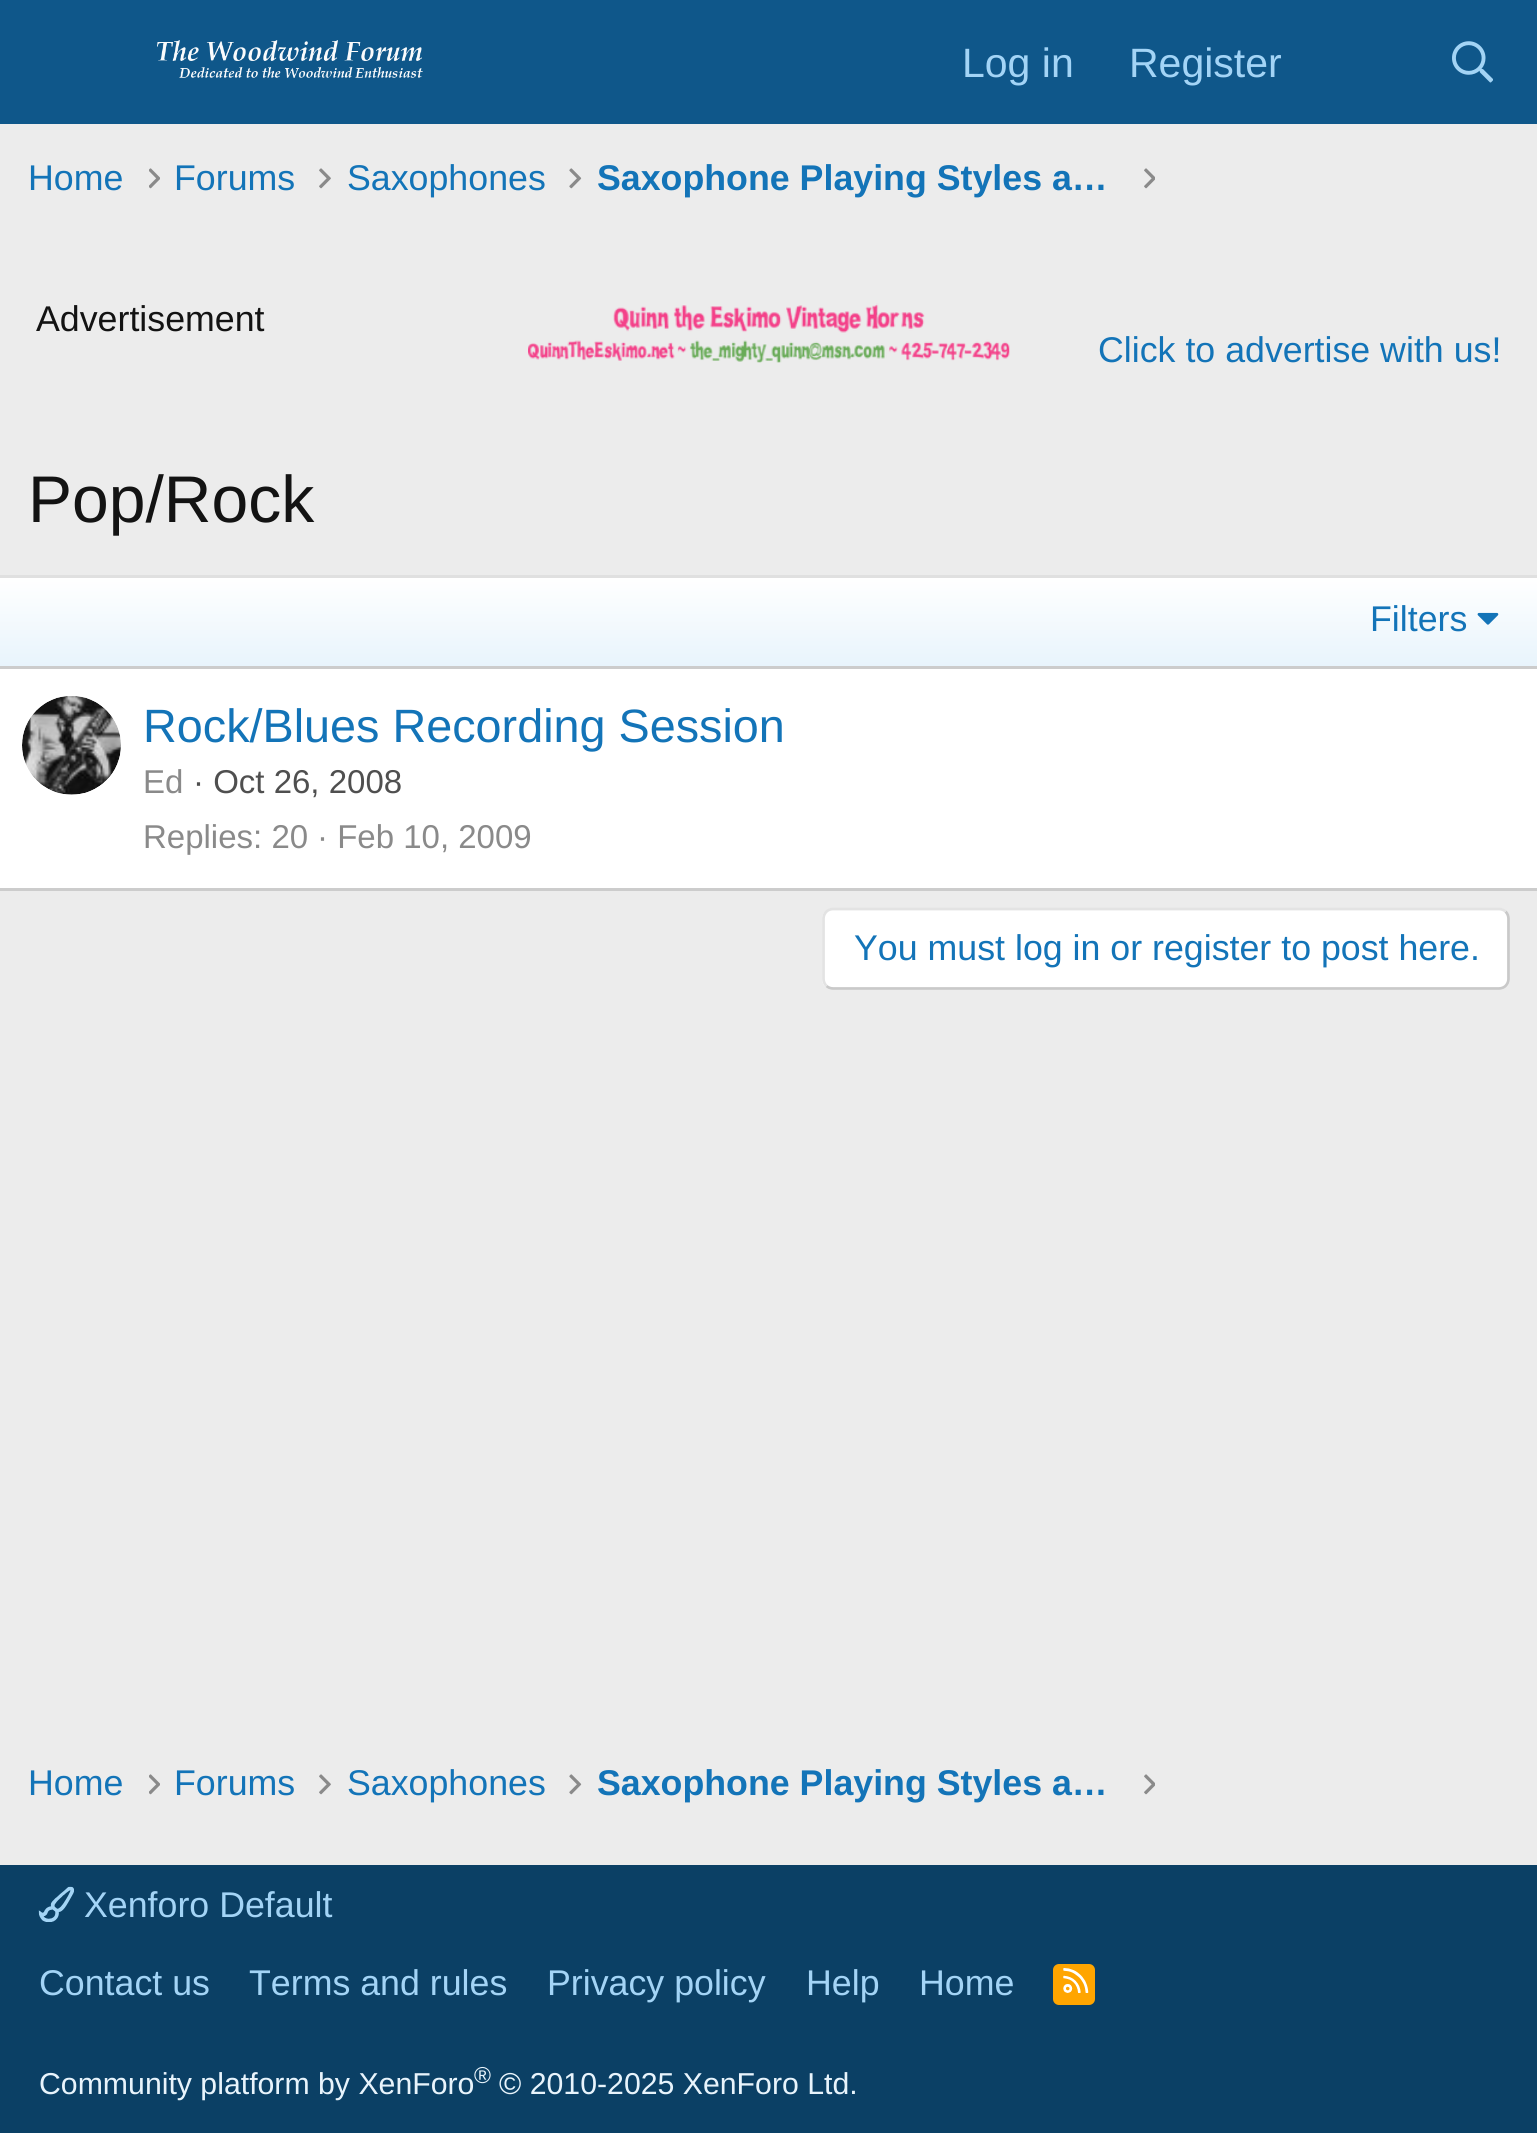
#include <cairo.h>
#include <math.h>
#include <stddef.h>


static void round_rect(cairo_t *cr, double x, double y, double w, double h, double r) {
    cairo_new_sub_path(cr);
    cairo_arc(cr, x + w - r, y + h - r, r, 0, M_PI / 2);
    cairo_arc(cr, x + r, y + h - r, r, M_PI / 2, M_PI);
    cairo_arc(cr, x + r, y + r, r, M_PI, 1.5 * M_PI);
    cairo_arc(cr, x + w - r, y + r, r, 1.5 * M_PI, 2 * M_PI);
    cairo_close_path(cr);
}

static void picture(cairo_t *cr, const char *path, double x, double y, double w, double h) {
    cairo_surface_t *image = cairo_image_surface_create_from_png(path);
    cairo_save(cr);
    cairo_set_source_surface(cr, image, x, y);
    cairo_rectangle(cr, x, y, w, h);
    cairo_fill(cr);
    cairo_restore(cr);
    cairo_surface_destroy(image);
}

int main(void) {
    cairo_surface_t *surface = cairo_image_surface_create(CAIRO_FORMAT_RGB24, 1537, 2133);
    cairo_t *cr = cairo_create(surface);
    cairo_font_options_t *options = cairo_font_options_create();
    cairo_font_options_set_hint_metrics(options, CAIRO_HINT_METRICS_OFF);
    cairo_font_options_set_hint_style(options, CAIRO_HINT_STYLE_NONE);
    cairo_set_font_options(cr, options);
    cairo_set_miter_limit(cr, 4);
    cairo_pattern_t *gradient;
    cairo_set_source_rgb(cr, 0.922, 0.922, 0.922);
    cairo_paint(cr);
    cairo_set_source_rgb(cr, 0.059, 0.341, 0.541);
    cairo_rectangle(cr, 0, 0, 1537, 124);
    cairo_fill(cr);
    picture(cr, "img1.png", 157, 40, 266, 38);
    cairo_select_font_face(cr, "Liberation Sans", CAIRO_FONT_SLANT_NORMAL, CAIRO_FONT_WEIGHT_NORMAL);
    cairo_set_font_size(cr, 41);
    cairo_set_source_rgb(cr, 0.639, 0.831, 0.961);
    cairo_move_to(cr, 962, 77);
    cairo_show_text(cr, "Log in");
    cairo_move_to(cr, 1129, 77);
    cairo_show_text(cr, "Register");
    picture(cr, "img2.png", 1452, 41, 41, 42);
    cairo_set_font_size(cr, 35.75);
    cairo_set_source_rgb(cr, 0.078, 0.455, 0.722);
    cairo_move_to(cr, 28, 190);
    cairo_show_text(cr, "Home");
    picture(cr, "img3.png", 149, 168, 11, 21);
    cairo_move_to(cr, 174, 190);
    cairo_show_text(cr, "Forums");
    picture(cr, "img4.png", 319, 168, 12, 21);
    cairo_move_to(cr, 347, 190);
    cairo_show_text(cr, "Saxophones");
    picture(cr, "img5.png", 569, 168, 13, 21);
    cairo_select_font_face(cr, "Liberation Sans", CAIRO_FONT_SLANT_NORMAL, CAIRO_FONT_WEIGHT_BOLD);
    cairo_move_to(cr, 597, 190);
    cairo_show_text(cr, "Saxophone Playing Styles a…");
    picture(cr, "img6.png", 1144, 168, 11, 21);
    cairo_select_font_face(cr, "Liberation Sans", CAIRO_FONT_SLANT_NORMAL, CAIRO_FONT_WEIGHT_NORMAL);
    cairo_set_source_rgb(cr, 0.078, 0.078, 0.078);
    cairo_move_to(cr, 36, 331);
    cairo_show_text(cr, "Advertisement");
    picture(cr, "img7.png", 528, 303, 482, 60);
    cairo_set_source_rgb(cr, 0.078, 0.455, 0.722);
    cairo_move_to(cr, 1098, 362);
    cairo_show_text(cr, "Click to advertise with us!");
    cairo_set_font_size(cr, 66);
    cairo_set_source_rgb(cr, 0.078, 0.078, 0.078);
    cairo_move_to(cr, 28, 522);
    cairo_show_text(cr, "Pop/Rock");
    cairo_set_source_rgb(cr, 1, 1, 1);
    cairo_rectangle(cr, 0, 669, 1537, 219);
    cairo_fill(cr);
    cairo_set_source_rgb(cr, 0.878, 0.878, 0.878);
    cairo_rectangle(cr, 0, 575, 1537, 3);
    cairo_fill(cr);
    cairo_set_source_rgb(cr, 0.8, 0.8, 0.8);
    cairo_rectangle(cr, 0, 888, 1537, 3);
    cairo_fill(cr);
    gradient = cairo_pattern_create_linear(769, 666, 769, 578);
    cairo_pattern_add_color_stop_rgba(gradient, 0, 0.91, 0.957, 0.988, 1);
    cairo_pattern_add_color_stop_rgba(gradient, 1, 1, 1, 1, 1);
    cairo_set_source(cr, gradient);
    cairo_pattern_destroy(gradient);
    cairo_rectangle(cr, 0, 578, 1537, 88);
    cairo_fill(cr);
    cairo_set_source_rgb(cr, 0.8, 0.8, 0.8);
    cairo_rectangle(cr, 0, 666, 1537, 3);
    cairo_fill(cr);
    cairo_set_font_size(cr, 35.75);
    cairo_set_source_rgb(cr, 0.078, 0.455, 0.722);
    cairo_move_to(cr, 1370, 631);
    cairo_show_text(cr, "Filters");
    picture(cr, "img8.png", 1477, 612, 22, 13);
    picture(cr, "img9.png", 22, 696, 99, 99);
    cairo_set_font_size(cr, 46.75);
    cairo_move_to(cr, 143, 742);
    cairo_show_text(cr, "Rock/Blues Recording Session");
    cairo_set_font_size(cr, 33);
    cairo_set_source_rgb(cr, 0.541, 0.541, 0.541);
    cairo_move_to(cr, 143, 793);
    cairo_show_text(cr, "Ed");
    cairo_set_source_rgb(cr, 0.31, 0.31, 0.31);
    cairo_move_to(cr, 193, 793);
    cairo_show_text(cr, "· Oct 26, 2008");
    cairo_set_source_rgb(cr, 0.541, 0.541, 0.541);
    cairo_move_to(cr, 143, 848);
    cairo_show_text(cr, "Replies: 20");
    cairo_move_to(cr, 317, 848);
    cairo_show_text(cr, "· Feb 10, 2009");
    cairo_set_source_rgb(cr, 1, 1, 1);
    round_rect(cr, 822, 908, 688, 82, 11);
    cairo_fill(cr);
    cairo_new_path(cr);
    cairo_move_to(cr, 1505.5, 911.5);
    cairo_curve_to(cr, 1507.5, 913.5, 1508.5, 916, 1508.5, 918.5);
    cairo_line_to(cr, 1508.5, 979);
    cairo_curve_to(cr, 1508.5, 981.5, 1507.5, 984, 1505.5, 986);
    cairo_curve_to(cr, 1504, 987.5, 1501.5, 988.5, 1499, 988.5);
    cairo_line_to(cr, 833, 988.5);
    cairo_curve_to(cr, 830.5, 988.5, 828, 987.5, 826.5, 986);
    cairo_set_source_rgb(cr, 0.788, 0.788, 0.788);
    cairo_set_line_width(cr, 2.8);
    cairo_stroke(cr);
    cairo_new_path(cr);
    cairo_move_to(cr, 826.5, 986);
    cairo_curve_to(cr, 824.5, 984, 823.5, 981.5, 823.5, 979);
    cairo_line_to(cr, 823.5, 918.5);
    cairo_curve_to(cr, 823.5, 916, 824.5, 913.5, 826.5, 911.5);
    cairo_curve_to(cr, 828, 910, 830.5, 909, 833, 909);
    cairo_line_to(cr, 1499, 909);
    cairo_curve_to(cr, 1501.5, 909, 1504, 910, 1505.5, 911.5);
    cairo_set_source_rgb(cr, 0.89, 0.89, 0.89);
    cairo_stroke(cr);
    cairo_set_font_size(cr, 35.75);
    cairo_set_source_rgb(cr, 0.078, 0.455, 0.722);
    cairo_move_to(cr, 854, 960);
    cairo_show_text(cr, "You must log in or register to post here.");
    cairo_move_to(cr, 28, 1795);
    cairo_show_text(cr, "Home");
    picture(cr, "img3.png", 149, 1774, 11, 21);
    cairo_move_to(cr, 174, 1795);
    cairo_show_text(cr, "Forums");
    picture(cr, "img4.png", 319, 1774, 12, 21);
    cairo_move_to(cr, 347, 1795);
    cairo_show_text(cr, "Saxophones");
    picture(cr, "img5.png", 569, 1774, 13, 21);
    cairo_select_font_face(cr, "Liberation Sans", CAIRO_FONT_SLANT_NORMAL, CAIRO_FONT_WEIGHT_BOLD);
    cairo_move_to(cr, 597, 1795);
    cairo_show_text(cr, "Saxophone Playing Styles a…");
    picture(cr, "img6.png", 1144, 1774, 11, 21);
    cairo_set_source_rgb(cr, 0.043, 0.251, 0.396);
    cairo_rectangle(cr, 0, 1865, 1537, 268);
    cairo_fill(cr);
    picture(cr, "img10.png", 38, 1886, 36, 36);
    cairo_select_font_face(cr, "Liberation Sans", CAIRO_FONT_SLANT_NORMAL, CAIRO_FONT_WEIGHT_NORMAL);
    cairo_set_source_rgb(cr, 0.639, 0.831, 0.961);
    cairo_move_to(cr, 84, 1917);
    cairo_show_text(cr, "Xenforo Default");
    cairo_move_to(cr, 39, 1995);
    cairo_show_text(cr, "Contact us");
    cairo_move_to(cr, 249, 1995);
    cairo_show_text(cr, "Terms and rules");
    cairo_move_to(cr, 547, 1995);
    cairo_show_text(cr, "Privacy policy");
    cairo_move_to(cr, 806, 1995);
    cairo_show_text(cr, "Help");
    cairo_move_to(cr, 919, 1995);
    cairo_show_text(cr, "Home");
    cairo_set_source_rgb(cr, 1, 0.647, 0);
    round_rect(cr, 1053, 1964, 42, 41, 6);
    cairo_fill(cr);
    picture(cr, "img11.png", 1063, 1968, 26, 25);
    cairo_set_font_size(cr, 30.25);
    cairo_set_source_rgb(cr, 0.91, 0.957, 0.988);
    cairo_move_to(cr, 39, 2094);
    cairo_show_text(cr, "Community platform by XenForo");
    cairo_set_font_size(cr, 23);
    cairo_move_to(cr, 474, 2083);
    cairo_show_text(cr, "®");
    cairo_set_font_size(cr, 30.25);
    cairo_move_to(cr, 499, 2094);
    cairo_show_text(cr, "© 2010-2025 XenForo Ltd.");
    cairo_surface_write_to_png(surface, "page.png");
    cairo_font_options_destroy(options);
    cairo_destroy(cr);
    cairo_surface_destroy(surface);
    return 0;
}
